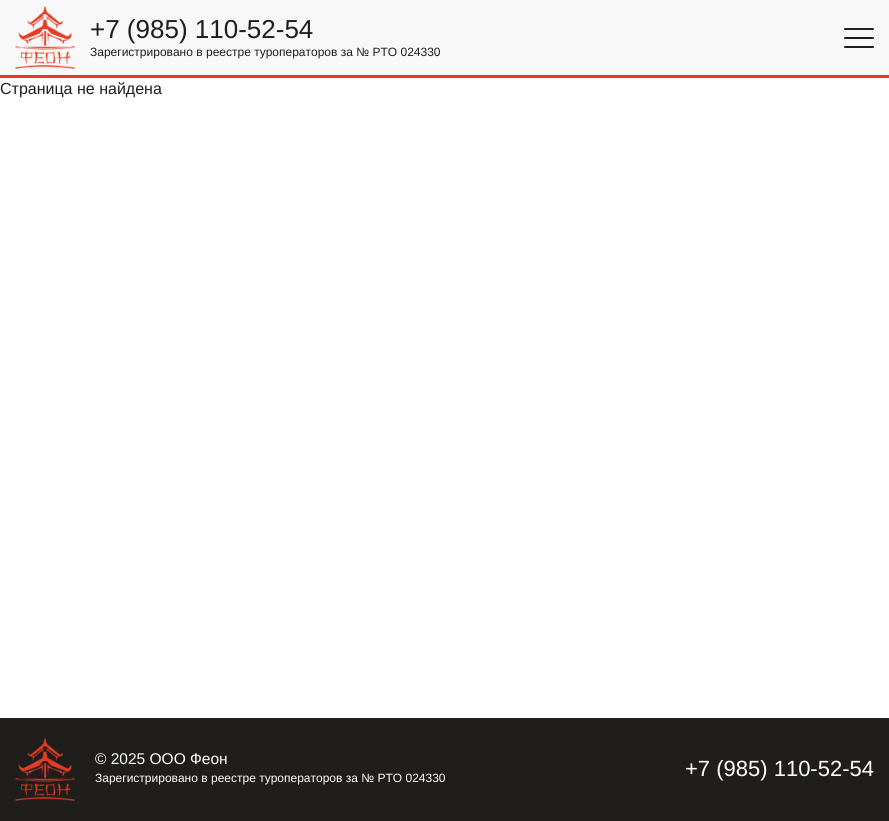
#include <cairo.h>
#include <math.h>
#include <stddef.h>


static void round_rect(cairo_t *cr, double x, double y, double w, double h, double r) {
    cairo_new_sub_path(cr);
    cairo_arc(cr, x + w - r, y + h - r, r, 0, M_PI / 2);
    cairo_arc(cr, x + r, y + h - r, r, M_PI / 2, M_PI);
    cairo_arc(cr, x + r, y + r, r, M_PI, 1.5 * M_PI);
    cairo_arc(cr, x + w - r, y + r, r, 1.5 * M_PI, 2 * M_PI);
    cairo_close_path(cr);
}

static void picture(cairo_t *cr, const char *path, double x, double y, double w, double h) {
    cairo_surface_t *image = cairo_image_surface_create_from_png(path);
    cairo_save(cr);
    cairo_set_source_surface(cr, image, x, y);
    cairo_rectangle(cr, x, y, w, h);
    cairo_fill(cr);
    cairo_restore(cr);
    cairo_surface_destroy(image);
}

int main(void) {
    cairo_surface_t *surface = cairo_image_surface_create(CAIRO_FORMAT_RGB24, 889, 821);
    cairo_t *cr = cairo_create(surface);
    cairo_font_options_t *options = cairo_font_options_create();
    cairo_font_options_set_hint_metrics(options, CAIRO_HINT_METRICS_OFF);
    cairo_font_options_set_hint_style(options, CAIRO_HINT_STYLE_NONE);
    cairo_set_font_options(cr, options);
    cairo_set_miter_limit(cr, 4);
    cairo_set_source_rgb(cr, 1, 1, 1);
    cairo_paint(cr);
    cairo_set_source_rgb(cr, 0.969, 0.969, 0.969);
    cairo_rectangle(cr, 0, 0, 889, 75);
    cairo_fill(cr);
    cairo_set_source_rgb(cr, 0.902, 0.231, 0.141);
    cairo_rectangle(cr, 0, 75, 889, 3);
    cairo_fill(cr);
    picture(cr, "img1.png", 15, 6, 60, 63);
    cairo_select_font_face(cr, "Liberation Sans", CAIRO_FONT_SLANT_NORMAL, CAIRO_FONT_WEIGHT_NORMAL);
    cairo_set_font_size(cr, 26);
    cairo_set_source_rgb(cr, 0.122, 0.118, 0.11);
    cairo_move_to(cr, 90, 38);
    cairo_show_text(cr, "+7 (985) 110-52-54");
    cairo_set_font_size(cr, 12);
    cairo_move_to(cr, 90, 56);
    cairo_show_text(cr, "Зарегистрировано в реестре туроператоров за № РТО 024330");
    round_rect(cr, 844, 28, 30, 2, 1);
    cairo_fill(cr);
    round_rect(cr, 844, 37, 30, 2, 1);
    cairo_fill(cr);
    round_rect(cr, 844, 46, 30, 2, 1);
    cairo_fill(cr);
    cairo_set_font_size(cr, 16);
    cairo_move_to(cr, 0, 94);
    cairo_show_text(cr, "Страница не найдена");
    cairo_rectangle(cr, 0, 718, 889, 103);
    cairo_fill(cr);
    picture(cr, "img2.png", 15, 738, 60, 63);
    cairo_set_font_size(cr, 15.5);
    cairo_set_source_rgb(cr, 1, 1, 1);
    cairo_move_to(cr, 95, 764);
    cairo_show_text(cr, "© 2025 ООО Феон");
    cairo_set_font_size(cr, 12);
    cairo_move_to(cr, 95, 782);
    cairo_show_text(cr, "Зарегистрировано в реестре туроператоров за № РТО 024330");
    cairo_set_font_size(cr, 22);
    cairo_move_to(cr, 685, 776);
    cairo_show_text(cr, "+7 (985) 110-52-54");
    cairo_surface_write_to_png(surface, "page.png");
    cairo_font_options_destroy(options);
    cairo_destroy(cr);
    cairo_surface_destroy(surface);
    return 0;
}
